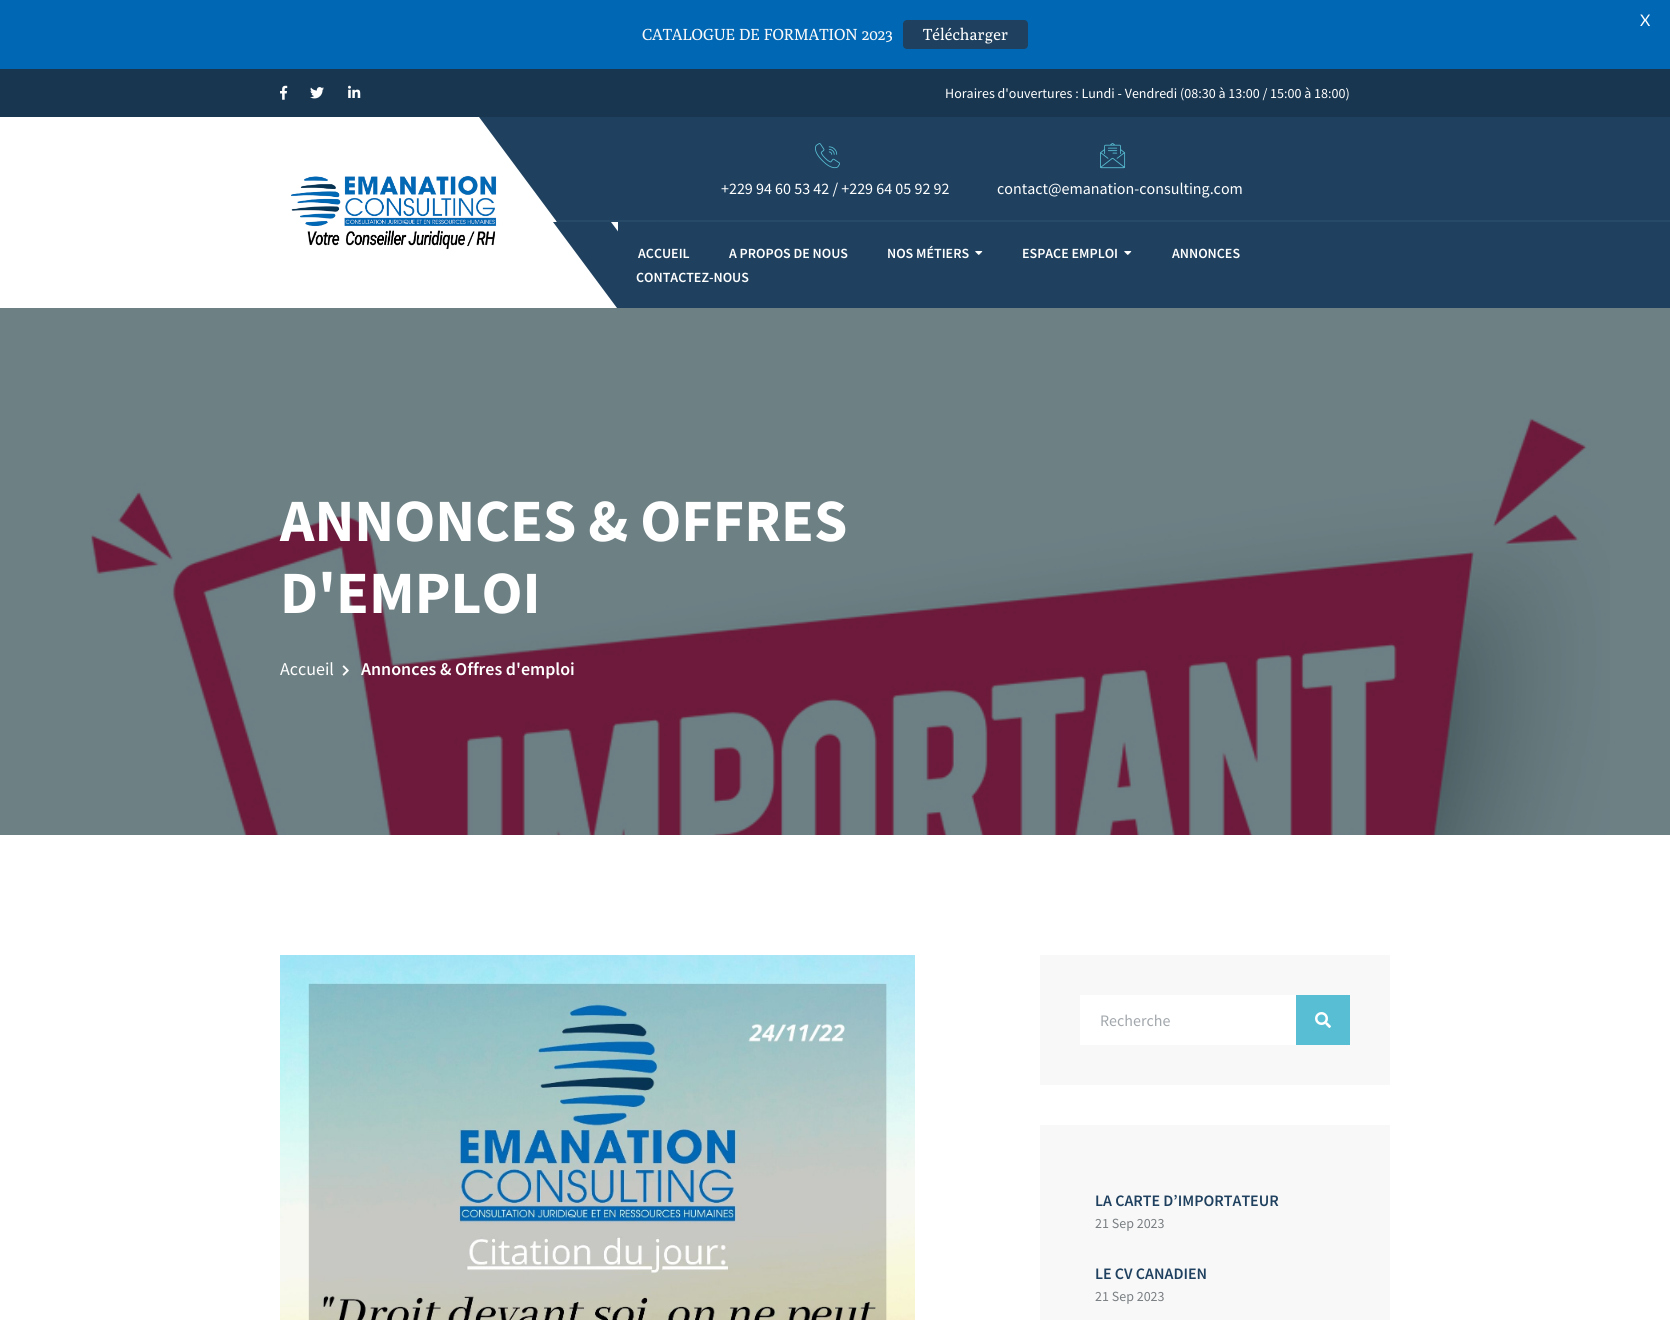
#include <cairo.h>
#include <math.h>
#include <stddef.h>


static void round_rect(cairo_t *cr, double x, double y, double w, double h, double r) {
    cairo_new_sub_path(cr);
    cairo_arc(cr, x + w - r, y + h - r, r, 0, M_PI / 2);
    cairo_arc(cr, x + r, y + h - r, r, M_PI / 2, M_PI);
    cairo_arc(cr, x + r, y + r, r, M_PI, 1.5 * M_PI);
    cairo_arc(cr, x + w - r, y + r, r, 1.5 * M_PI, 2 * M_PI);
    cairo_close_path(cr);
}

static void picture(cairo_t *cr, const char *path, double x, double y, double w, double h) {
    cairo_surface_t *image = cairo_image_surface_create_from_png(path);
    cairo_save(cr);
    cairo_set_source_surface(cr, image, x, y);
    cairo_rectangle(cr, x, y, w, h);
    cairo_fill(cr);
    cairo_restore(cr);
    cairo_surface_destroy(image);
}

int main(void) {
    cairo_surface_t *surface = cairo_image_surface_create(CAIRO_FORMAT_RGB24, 1670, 1320);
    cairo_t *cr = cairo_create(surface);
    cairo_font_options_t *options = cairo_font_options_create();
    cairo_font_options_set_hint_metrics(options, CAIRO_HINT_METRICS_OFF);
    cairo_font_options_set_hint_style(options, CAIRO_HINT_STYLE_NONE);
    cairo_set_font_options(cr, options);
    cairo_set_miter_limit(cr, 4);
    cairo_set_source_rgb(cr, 1, 1, 1);
    cairo_paint(cr);
    cairo_set_source_rgb(cr, 0.427, 0.502, 0.518);
    cairo_rectangle(cr, 0, 308, 1670, 527);
    cairo_fill(cr);
    cairo_set_source_rgb(cr, 0, 0.404, 0.706);
    cairo_rectangle(cr, 0, 0, 1670, 69);
    cairo_fill(cr);
    cairo_select_font_face(cr, "Lato", CAIRO_FONT_SLANT_NORMAL, CAIRO_FONT_WEIGHT_NORMAL);
    cairo_set_font_size(cr, 16);
    cairo_set_source_rgb(cr, 1, 1, 1);
    cairo_move_to(cr, 1640, 26);
    cairo_show_text(cr, "X");
    cairo_select_font_face(cr, "Poly", CAIRO_FONT_SLANT_NORMAL, CAIRO_FONT_WEIGHT_NORMAL);
    cairo_set_source_rgb(cr, 0.969, 0.969, 0.969);
    cairo_move_to(cr, 642, 40);
    cairo_show_text(cr, "CATALOGUE DE FORMATION 2023");
    cairo_set_source_rgb(cr, 0.122, 0.255, 0.373);
    round_rect(cr, 903, 20, 125, 29, 4);
    cairo_fill(cr);
    cairo_set_source_rgb(cr, 1, 1, 1);
    cairo_move_to(cr, 923, 40);
    cairo_show_text(cr, "Télécharger");
    cairo_set_source_rgb(cr, 0.094, 0.212, 0.314);
    cairo_rectangle(cr, 0, 69, 1670, 48);
    cairo_fill(cr);
    picture(cr, "img1.png", 280, 85, 8, 15);
    picture(cr, "img2.png", 310, 87, 14, 12);
    picture(cr, "img3.png", 348, 85, 13, 13);
    cairo_select_font_face(cr, "Source Sans Pro", CAIRO_FONT_SLANT_NORMAL, CAIRO_FONT_WEIGHT_NORMAL);
    cairo_set_font_size(cr, 14);
    cairo_set_source_rgb(cr, 1, 1, 1);
    cairo_move_to(cr, 945, 98);
    cairo_show_text(cr, "Horaires d'ouvertures : Lundi - Vendredi (08:30 à 13:00 / 15:00 à 18:00)");
    picture(cr, "img4.png", 290, 175, 207, 75);
    cairo_set_source_rgb(cr, 0.122, 0.255, 0.373);
    cairo_rectangle(cr, 579, 117, 1091, 103);
    cairo_fill(cr);
    cairo_set_source_rgb(cr, 0.153, 0.29, 0.412);
    cairo_rectangle(cr, 656, 220, 1014, 2);
    cairo_fill(cr);
    cairo_set_source_rgb(cr, 0.122, 0.255, 0.373);
    cairo_new_path(cr);
    cairo_move_to(cr, 479, 117);
    cairo_line_to(cr, 579, 117);
    cairo_line_to(cr, 657, 222);
    cairo_line_to(cr, 557, 222);
    cairo_close_path(cr);
    cairo_fill(cr);
    cairo_set_source_rgb(cr, 0.153, 0.29, 0.412);
    cairo_new_path(cr);
    cairo_move_to(cr, 556, 220);
    cairo_line_to(cr, 656, 220);
    cairo_line_to(cr, 657, 222);
    cairo_line_to(cr, 557, 222);
    cairo_close_path(cr);
    cairo_fill(cr);
    picture(cr, "img5.png", 815, 143, 25, 26);
    cairo_set_font_size(cr, 16);
    cairo_set_source_rgb(cr, 1, 1, 1);
    cairo_move_to(cr, 721, 194);
    cairo_show_text(cr, "+229 94 60 53 42 / +229 64 05 92 92");
    picture(cr, "img6.png", 1100, 143, 26, 26);
    cairo_move_to(cr, 997, 194);
    cairo_show_text(cr, "contact@emanation-consulting.com");
    cairo_set_source_rgb(cr, 0.122, 0.255, 0.373);
    cairo_rectangle(cr, 618, 222, 1052, 86);
    cairo_fill(cr);
    cairo_new_path(cr);
    cairo_move_to(cr, 553, 222);
    cairo_line_to(cr, 611, 222);
    cairo_line_to(cr, 675, 308);
    cairo_line_to(cr, 617, 308);
    cairo_close_path(cr);
    cairo_fill(cr);
    cairo_select_font_face(cr, "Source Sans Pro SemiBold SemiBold", CAIRO_FONT_SLANT_NORMAL, CAIRO_FONT_WEIGHT_NORMAL);
    cairo_set_font_size(cr, 14);
    cairo_set_source_rgb(cr, 1, 1, 1);
    cairo_move_to(cr, 638, 258);
    cairo_show_text(cr, "ACCUEIL");
    cairo_move_to(cr, 729, 258);
    cairo_show_text(cr, "A PROPOS DE NOUS");
    cairo_move_to(cr, 887, 258);
    cairo_show_text(cr, "NOS MÉTIERS");
    picture(cr, "img7.png", 975, 251, 8, 4);
    cairo_move_to(cr, 1022, 258);
    cairo_show_text(cr, "ESPACE EMPLOI");
    picture(cr, "img7.png", 1124, 251, 8, 4);
    cairo_move_to(cr, 1172, 258);
    cairo_show_text(cr, "ANNONCES");
    cairo_move_to(cr, 636, 282);
    cairo_show_text(cr, "CONTACTEZ-NOUS");
    picture(cr, "img8.png", 90, 418, 1520, 417);
    cairo_select_font_face(cr, "Source Sans Pro", CAIRO_FONT_SLANT_NORMAL, CAIRO_FONT_WEIGHT_BOLD);
    cairo_set_font_size(cr, 60);
    cairo_move_to(cr, 280, 541);
    cairo_show_text(cr, "ANNONCES & OFFRES");
    cairo_move_to(cr, 280, 613);
    cairo_show_text(cr, "D'EMPLOI");
    cairo_select_font_face(cr, "Source Sans Pro", CAIRO_FONT_SLANT_NORMAL, CAIRO_FONT_WEIGHT_NORMAL);
    cairo_set_font_size(cr, 18);
    cairo_move_to(cr, 280, 675);
    cairo_show_text(cr, "Accueil");
    picture(cr, "img9.png", 342, 665, 7, 11);
    cairo_select_font_face(cr, "Source Sans Pro SemiBold SemiBold", CAIRO_FONT_SLANT_NORMAL, CAIRO_FONT_WEIGHT_NORMAL);
    cairo_move_to(cr, 361, 675);
    cairo_show_text(cr, "Annonces & Offres d'emploi");
    picture(cr, "img10.png", 280, 955, 635, 365);
    cairo_set_source_rgb(cr, 0.969, 0.969, 0.969);
    cairo_rectangle(cr, 1040, 955, 350, 130);
    cairo_fill(cr);
    cairo_set_source_rgb(cr, 1, 1, 1);
    cairo_rectangle(cr, 1080, 995, 216, 50);
    cairo_fill(cr);
    cairo_select_font_face(cr, "Source Sans Pro", CAIRO_FONT_SLANT_NORMAL, CAIRO_FONT_WEIGHT_NORMAL);
    cairo_set_font_size(cr, 16);
    cairo_set_source_rgb(cr, 0.635, 0.655, 0.675);
    cairo_move_to(cr, 1100, 1026);
    cairo_show_text(cr, "Recherche");
    cairo_set_source_rgb(cr, 0.345, 0.745, 0.827);
    cairo_rectangle(cr, 1296, 995, 54, 50);
    cairo_fill(cr);
    picture(cr, "img11.png", 1315, 1012, 16, 16);
    cairo_set_source_rgb(cr, 0.969, 0.969, 0.969);
    cairo_rectangle(cr, 1040, 1125, 350, 195);
    cairo_fill(cr);
    cairo_select_font_face(cr, "Source Sans Pro SemiBold SemiBold", CAIRO_FONT_SLANT_NORMAL, CAIRO_FONT_WEIGHT_NORMAL);
    cairo_set_source_rgb(cr, 0.122, 0.255, 0.373);
    cairo_move_to(cr, 1095, 1206);
    cairo_show_text(cr, "LA CARTE D’IMPORTATEUR");
    cairo_select_font_face(cr, "Source Sans Pro", CAIRO_FONT_SLANT_NORMAL, CAIRO_FONT_WEIGHT_NORMAL);
    cairo_set_font_size(cr, 14);
    cairo_set_source_rgb(cr, 0.475, 0.494, 0.51);
    cairo_move_to(cr, 1095, 1228);
    cairo_show_text(cr, "21 Sep 2023");
    cairo_select_font_face(cr, "Source Sans Pro SemiBold SemiBold", CAIRO_FONT_SLANT_NORMAL, CAIRO_FONT_WEIGHT_NORMAL);
    cairo_set_font_size(cr, 16);
    cairo_set_source_rgb(cr, 0.122, 0.255, 0.373);
    cairo_move_to(cr, 1095, 1279);
    cairo_show_text(cr, "LE CV CANADIEN");
    cairo_select_font_face(cr, "Source Sans Pro", CAIRO_FONT_SLANT_NORMAL, CAIRO_FONT_WEIGHT_NORMAL);
    cairo_set_font_size(cr, 14);
    cairo_set_source_rgb(cr, 0.475, 0.494, 0.51);
    cairo_move_to(cr, 1095, 1301);
    cairo_show_text(cr, "21 Sep 2023");
    cairo_surface_write_to_png(surface, "page.png");
    cairo_font_options_destroy(options);
    cairo_destroy(cr);
    cairo_surface_destroy(surface);
    return 0;
}
